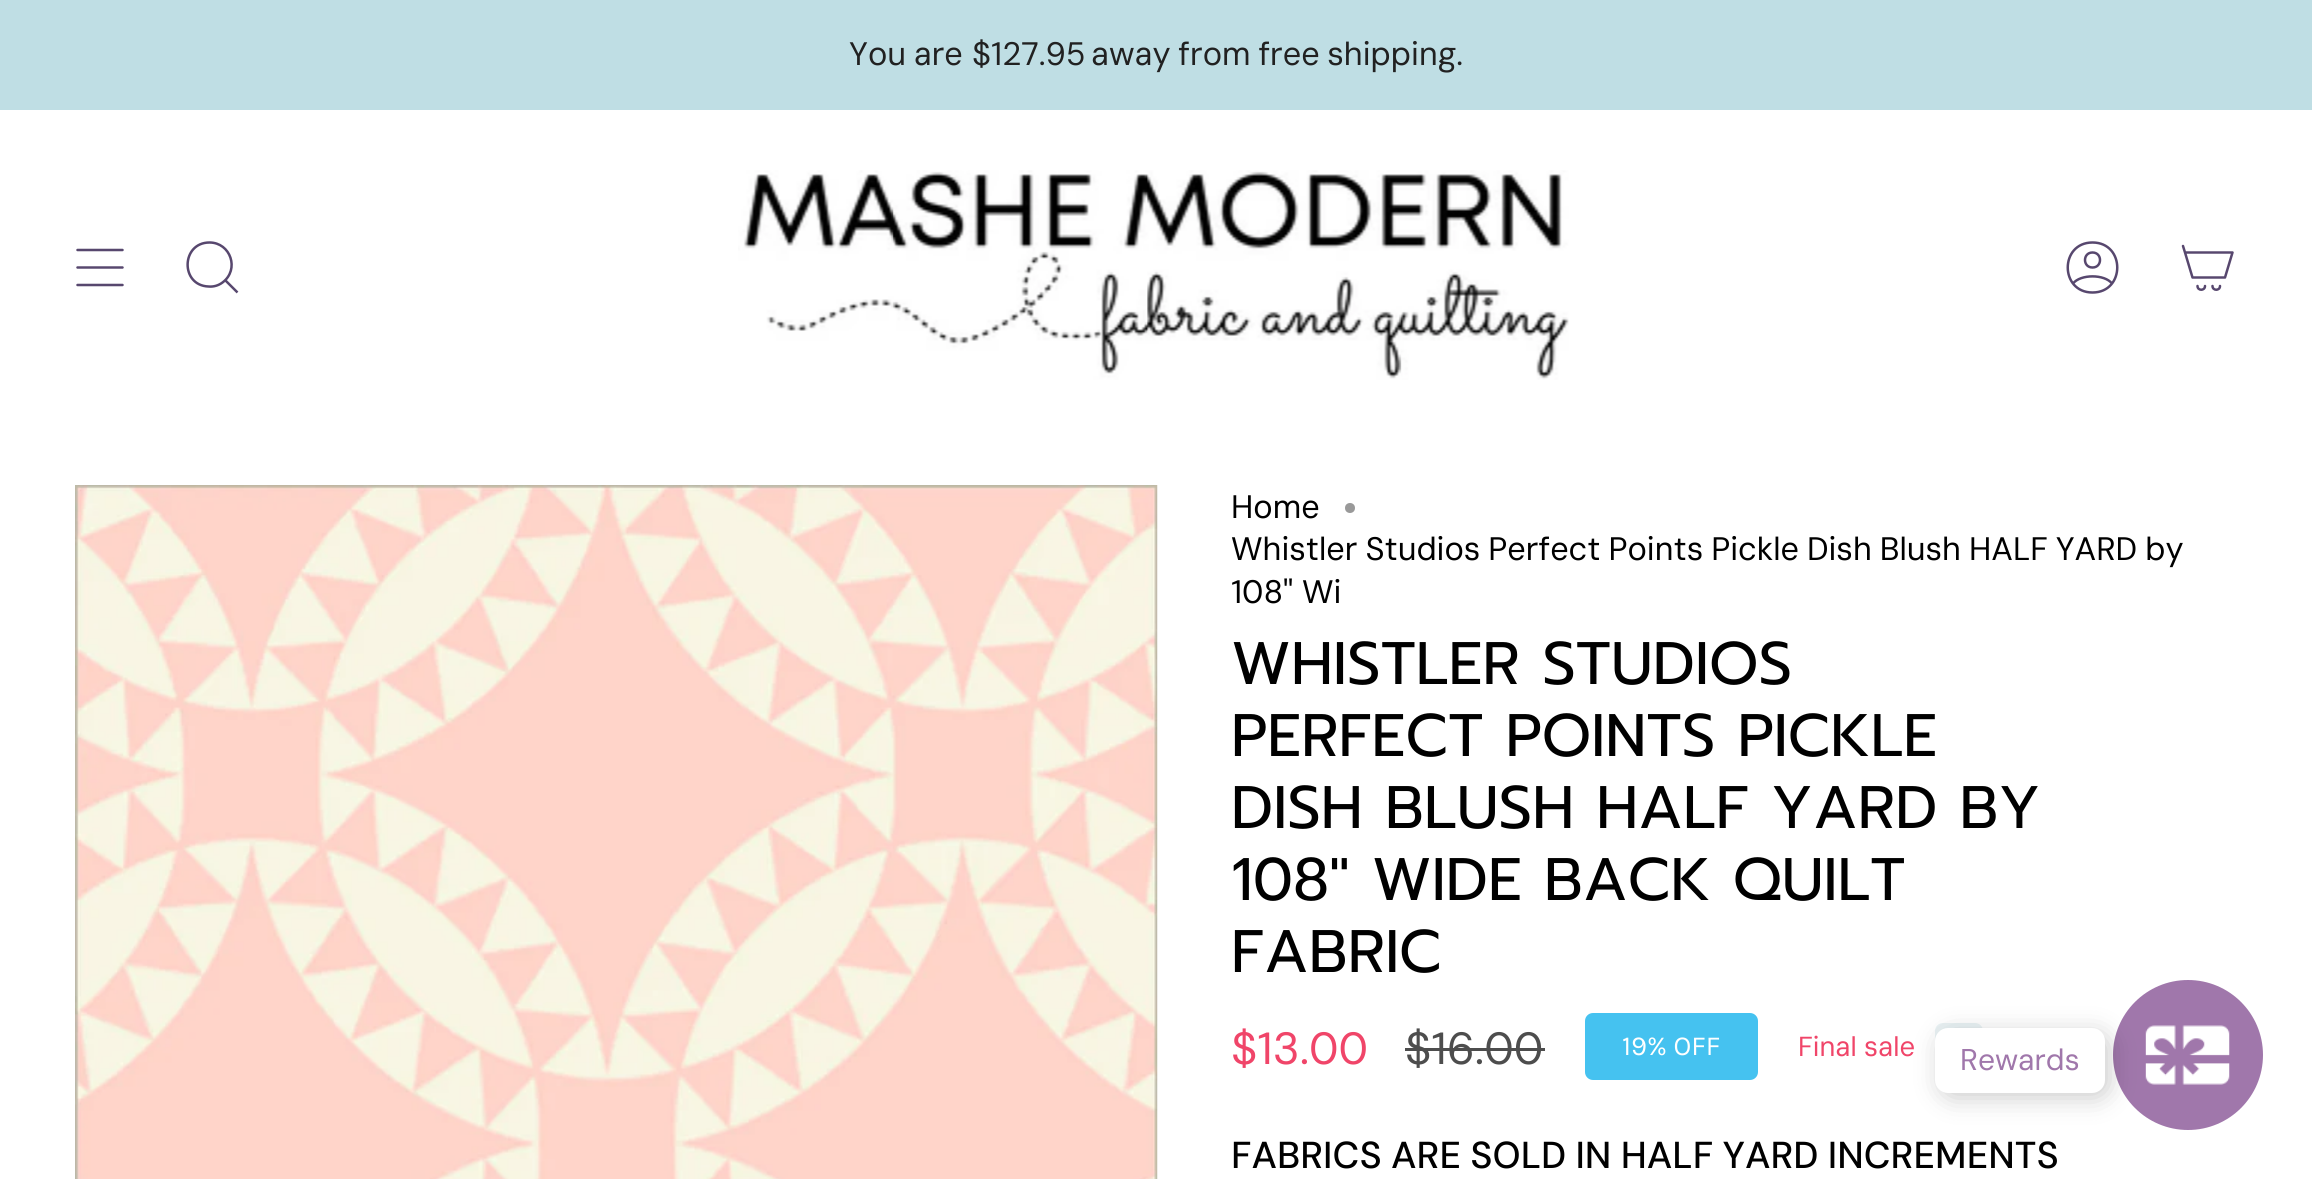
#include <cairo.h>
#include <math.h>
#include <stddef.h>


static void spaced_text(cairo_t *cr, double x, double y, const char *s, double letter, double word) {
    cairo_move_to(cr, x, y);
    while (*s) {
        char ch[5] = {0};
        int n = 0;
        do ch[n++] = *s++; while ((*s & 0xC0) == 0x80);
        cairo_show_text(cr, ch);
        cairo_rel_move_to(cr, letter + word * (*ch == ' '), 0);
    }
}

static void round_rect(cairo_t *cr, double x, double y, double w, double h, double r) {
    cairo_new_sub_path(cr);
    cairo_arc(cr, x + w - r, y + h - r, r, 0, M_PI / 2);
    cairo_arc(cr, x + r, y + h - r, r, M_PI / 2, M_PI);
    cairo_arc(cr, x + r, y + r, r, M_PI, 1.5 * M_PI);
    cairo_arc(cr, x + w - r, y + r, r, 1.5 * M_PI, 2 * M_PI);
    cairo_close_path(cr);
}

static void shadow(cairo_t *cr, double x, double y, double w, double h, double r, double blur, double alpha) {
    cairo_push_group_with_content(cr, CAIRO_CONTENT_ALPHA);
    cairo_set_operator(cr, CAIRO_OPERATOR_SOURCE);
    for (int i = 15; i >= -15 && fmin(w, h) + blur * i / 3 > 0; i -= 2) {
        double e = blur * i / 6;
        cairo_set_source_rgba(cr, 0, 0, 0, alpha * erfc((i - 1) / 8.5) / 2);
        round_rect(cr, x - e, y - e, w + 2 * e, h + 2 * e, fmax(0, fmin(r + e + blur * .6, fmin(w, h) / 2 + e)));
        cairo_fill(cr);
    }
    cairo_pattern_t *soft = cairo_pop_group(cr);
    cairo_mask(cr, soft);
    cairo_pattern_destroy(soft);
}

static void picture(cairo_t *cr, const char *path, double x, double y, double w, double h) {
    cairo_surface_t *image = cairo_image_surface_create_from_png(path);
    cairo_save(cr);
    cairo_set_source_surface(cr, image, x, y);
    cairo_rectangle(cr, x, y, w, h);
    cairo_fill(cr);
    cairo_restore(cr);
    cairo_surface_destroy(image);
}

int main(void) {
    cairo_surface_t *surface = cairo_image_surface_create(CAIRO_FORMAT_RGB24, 2312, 1179);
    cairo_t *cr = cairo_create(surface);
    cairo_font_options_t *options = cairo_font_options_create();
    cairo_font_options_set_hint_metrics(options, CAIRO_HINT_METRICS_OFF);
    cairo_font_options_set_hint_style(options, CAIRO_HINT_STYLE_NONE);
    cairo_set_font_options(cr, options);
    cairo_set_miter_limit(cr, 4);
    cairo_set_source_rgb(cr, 1, 1, 1);
    cairo_paint(cr);
    cairo_set_source_rgb(cr, 0.749, 0.871, 0.894);
    cairo_rectangle(cr, 0, 0, 2312, 110);
    cairo_fill(cr);
    cairo_select_font_face(cr, "DM Sans", CAIRO_FONT_SLANT_NORMAL, CAIRO_FONT_WEIGHT_NORMAL);
    cairo_set_font_size(cr, 32.5);
    cairo_set_source_rgb(cr, 0.129, 0.129, 0.129);
    spaced_text(cr, 849, 65, "You are", 0, -1);
    cairo_move_to(cr, 972, 65);
    cairo_show_text(cr, "$127.95");
    spaced_text(cr, 1091, 65, "away from free shipping.", 0, -1);
    cairo_new_path(cr);
    cairo_move_to(cr, 77.5, 250);
    cairo_line_to(cr, 122.5, 250);
    cairo_move_to(cr, 77.5, 267.5);
    cairo_line_to(cr, 122.5, 267.5);
    cairo_move_to(cr, 77.5, 285);
    cairo_line_to(cr, 122.5, 285);
    cairo_set_source_rgb(cr, 0.341, 0.278, 0.431);
    cairo_set_line_width(cr, 2.5);
    cairo_set_line_cap(cr, CAIRO_LINE_CAP_ROUND);
    cairo_set_line_join(cr, CAIRO_LINE_JOIN_ROUND);
    cairo_stroke(cr);
    cairo_new_path(cr);
    cairo_move_to(cr, 209.5, 242.5);
    cairo_curve_to(cr, 230.5, 242.5, 240, 269.5, 222.5, 282.5);
    cairo_curve_to(cr, 218.5, 285.5, 213.5, 287, 208.5, 286.5);
    cairo_curve_to(cr, 180, 285.5, 181, 242.5, 209.5, 242.5);
    cairo_close_path(cr);
    cairo_move_to(cr, 225.5, 280.5);
    cairo_line_to(cr, 237.5, 292.5);
    cairo_set_line_cap(cr, CAIRO_LINE_CAP_BUTT);
    cairo_set_line_join(cr, CAIRO_LINE_JOIN_MITER);
    cairo_stroke(cr);
    picture(cr, "img1.png", 738, 170, 831, 210);
    cairo_new_path(cr);
    cairo_move_to(cr, 2092.5, 242.5);
    cairo_curve_to(cr, 2059.5, 242.5, 2059.5, 292.5, 2092.5, 292.5);
    cairo_curve_to(cr, 2125.5, 292.5, 2125.5, 242.5, 2092.5, 242.5);
    cairo_close_path(cr);
    cairo_move_to(cr, 2073, 283.5);
    cairo_curve_to(cr, 2080.5, 274, 2104.5, 274, 2112, 283.5);
    cairo_move_to(cr, 2092.5, 267.5);
    cairo_curve_to(cr, 2102.5, 267.5, 2102.5, 252.5, 2092.5, 252.5);
    cairo_curve_to(cr, 2082.5, 252.5, 2082.5, 267.5, 2092.5, 267.5);
    cairo_close_path(cr);
    cairo_set_line_cap(cr, CAIRO_LINE_CAP_ROUND);
    cairo_set_line_join(cr, CAIRO_LINE_JOIN_ROUND);
    cairo_stroke(cr);
    cairo_new_path(cr);
    cairo_move_to(cr, 2185, 252.5);
    cairo_line_to(cr, 2232.5, 252.5);
    cairo_line_to(cr, 2225, 277.5);
    cairo_line_to(cr, 2192.5, 277.5);
    cairo_close_path(cr);
    cairo_move_to(cr, 2185, 252.5);
    cairo_line_to(cr, 2183, 246);
    cairo_move_to(cr, 2205, 286);
    cairo_curve_to(cr, 2205, 291, 2197.5, 291, 2197.5, 286);
    cairo_move_to(cr, 2220, 286);
    cairo_curve_to(cr, 2220, 291, 2212.5, 291, 2212.5, 286);
    cairo_stroke(cr);
    picture(cr, "img2.png", 75, 485, 1083, 694);
    cairo_set_source_rgb(cr, 0, 0, 0);
    cairo_move_to(cr, 1231, 518);
    cairo_show_text(cr, "Home");
    cairo_set_source_rgb(cr, 0.6, 0.6, 0.6);
    cairo_new_path(cr);
    cairo_arc(cr, 1350, 508, 5, 0, 2 * M_PI);
    cairo_fill(cr);
    cairo_set_source_rgb(cr, 0, 0, 0);
    spaced_text(cr, 1231, 560, "Whistler Studios Perfect Points Pickle Dish Blush HALF YARD by", 0, -0.75);
    cairo_move_to(cr, 1231, 603);
    cairo_show_text(cr, "108\" Wi");
    cairo_select_font_face(cr, "Prompt", CAIRO_FONT_SLANT_NORMAL, CAIRO_FONT_WEIGHT_NORMAL);
    cairo_set_font_size(cr, 60);
    cairo_move_to(cr, 1231, 684);
    cairo_show_text(cr, "WHISTLER STUDIOS");
    cairo_move_to(cr, 1231, 756);
    cairo_show_text(cr, "PERFECT POINTS PICKLE");
    cairo_move_to(cr, 1231, 828);
    cairo_show_text(cr, "DISH BLUSH HALF YARD BY");
    cairo_move_to(cr, 1231, 900);
    cairo_show_text(cr, "108\" WIDE BACK QUILT");
    cairo_move_to(cr, 1231, 972);
    cairo_show_text(cr, "FABRIC");
    cairo_select_font_face(cr, "DM Sans", CAIRO_FONT_SLANT_NORMAL, CAIRO_FONT_WEIGHT_NORMAL);
    cairo_set_font_size(cr, 45);
    cairo_set_source_rgb(cr, 0.941, 0.271, 0.412);
    cairo_move_to(cr, 1231, 1064);
    cairo_show_text(cr, "$13.00");
    cairo_set_source_rgb(cr, 0.302, 0.302, 0.302);
    cairo_move_to(cr, 1405, 1064);
    cairo_show_text(cr, "$16.00");
    cairo_rectangle(cr, 1405, 1048, 140, 3);
    cairo_fill(cr);
    cairo_set_source_rgb(cr, 0.271, 0.761, 0.941);
    round_rect(cr, 1585, 1013, 173, 67, 8);
    cairo_fill(cr);
    cairo_select_font_face(cr, "Karla", CAIRO_FONT_SLANT_NORMAL, CAIRO_FONT_WEIGHT_NORMAL);
    cairo_set_font_size(cr, 27.5);
    cairo_set_source_rgb(cr, 1, 1, 1);
    cairo_move_to(cr, 1622, 1055);
    cairo_show_text(cr, "19% OFF");
    cairo_select_font_face(cr, "DM Sans", CAIRO_FONT_SLANT_NORMAL, CAIRO_FONT_WEIGHT_NORMAL);
    cairo_set_source_rgb(cr, 0.941, 0.271, 0.412);
    cairo_move_to(cr, 1798, 1056);
    cairo_show_text(cr, "Final sale");
    cairo_set_source_rgb(cr, 0.914, 0.949, 0.957);
    round_rect(cr, 1935, 1023, 48, 47, 8);
    cairo_fill(cr);
    cairo_select_font_face(cr, "DM Sans Medium", CAIRO_FONT_SLANT_NORMAL, CAIRO_FONT_WEIGHT_NORMAL);
    cairo_set_font_size(cr, 37.5);
    cairo_set_source_rgb(cr, 0, 0, 0);
    spaced_text(cr, 1231, 1168, "FABRICS ARE SOLD IN HALF YARD INCREMENTS", 0, -0.5);
    cairo_set_source_rgb(cr, 0.627, 0.467, 0.671);
    cairo_new_path(cr);
    cairo_arc(cr, 2188, 1055, 75, 0, 2 * M_PI);
    cairo_fill(cr);
    picture(cr, "img3.png", 2145, 1025, 85, 60);
    cairo_set_source_rgb(cr, 0, 0, 0);
    shadow(cr, 1940, 1033, 170, 65, 13, 12.5, 0.2);
    cairo_set_source_rgb(cr, 1, 1, 1);
    round_rect(cr, 1935, 1028, 170, 65, 13);
    cairo_fill(cr);
    cairo_select_font_face(cr, "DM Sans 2", CAIRO_FONT_SLANT_NORMAL, CAIRO_FONT_WEIGHT_NORMAL);
    cairo_set_font_size(cr, 30);
    cairo_set_source_rgb(cr, 0.627, 0.467, 0.671);
    cairo_move_to(cr, 1960, 1070);
    cairo_show_text(cr, "Rewards");
    cairo_surface_write_to_png(surface, "page.png");
    cairo_font_options_destroy(options);
    cairo_destroy(cr);
    cairo_surface_destroy(surface);
    return 0;
}
